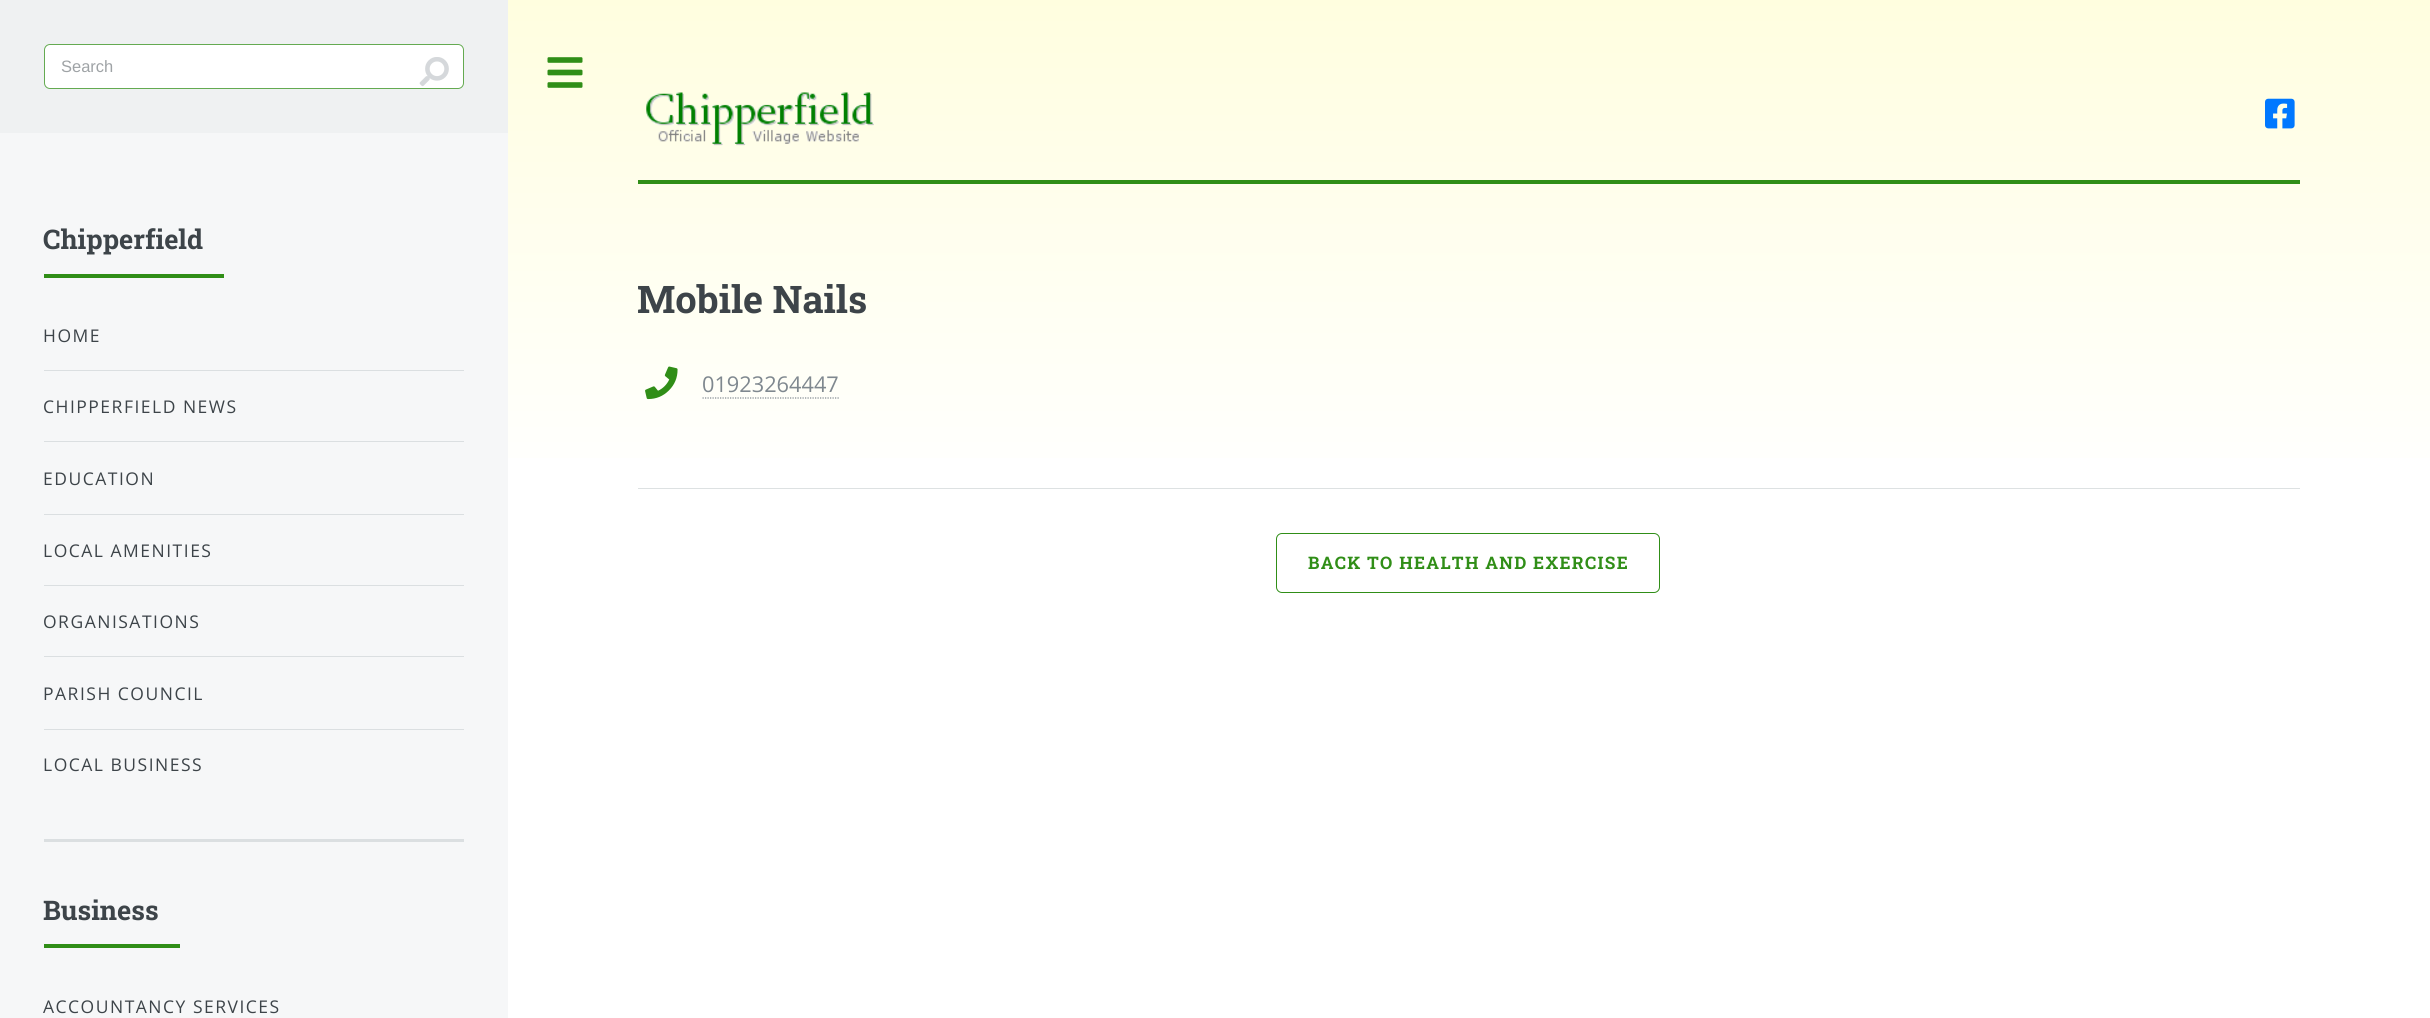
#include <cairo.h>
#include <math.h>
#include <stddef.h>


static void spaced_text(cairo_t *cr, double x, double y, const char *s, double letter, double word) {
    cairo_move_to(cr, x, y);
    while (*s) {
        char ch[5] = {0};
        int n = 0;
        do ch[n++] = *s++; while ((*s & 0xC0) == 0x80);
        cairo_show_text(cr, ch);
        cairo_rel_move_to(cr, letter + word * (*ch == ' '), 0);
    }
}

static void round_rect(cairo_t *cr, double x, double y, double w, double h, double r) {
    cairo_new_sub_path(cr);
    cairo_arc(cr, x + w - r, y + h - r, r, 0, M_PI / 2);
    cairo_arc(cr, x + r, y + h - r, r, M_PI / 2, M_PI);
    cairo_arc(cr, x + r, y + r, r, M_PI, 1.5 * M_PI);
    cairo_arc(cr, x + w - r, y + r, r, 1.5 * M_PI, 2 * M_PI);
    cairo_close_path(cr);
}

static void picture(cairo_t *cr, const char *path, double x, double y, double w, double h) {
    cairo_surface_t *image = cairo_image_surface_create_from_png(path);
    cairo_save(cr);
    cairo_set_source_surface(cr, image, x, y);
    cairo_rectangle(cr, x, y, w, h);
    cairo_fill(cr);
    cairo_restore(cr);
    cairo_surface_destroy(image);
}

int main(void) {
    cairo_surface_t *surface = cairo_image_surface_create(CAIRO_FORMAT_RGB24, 2430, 1018);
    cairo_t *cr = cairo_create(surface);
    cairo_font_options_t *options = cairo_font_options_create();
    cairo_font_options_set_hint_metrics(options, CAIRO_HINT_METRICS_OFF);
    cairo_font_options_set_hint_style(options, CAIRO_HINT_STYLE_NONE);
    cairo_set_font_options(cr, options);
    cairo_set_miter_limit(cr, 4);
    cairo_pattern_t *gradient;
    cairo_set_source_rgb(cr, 1, 1, 1);
    cairo_paint(cr);
    gradient = cairo_pattern_create_linear(1215, 0, 1215, 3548);
    cairo_pattern_add_color_stop_rgba(gradient, 0, 1, 0.996, 0.875, 1);
    cairo_pattern_add_color_stop_rgba(gradient, 0.14, 1, 1, 1, 1);
    cairo_set_source(cr, gradient);
    cairo_pattern_destroy(gradient);
    cairo_rectangle(cr, 508, 0, 1922, 458);
    cairo_fill(cr);
    cairo_set_source_rgb(cr, 0.961, 0.965, 0.969);
    cairo_rectangle(cr, 0, 133, 508, 885);
    cairo_fill(cr);
    cairo_set_source_rgb(cr, 0.937, 0.945, 0.949);
    cairo_rectangle(cr, 0, 0, 508, 133);
    cairo_fill(cr);
    cairo_set_source_rgb(cr, 1, 1, 1);
    round_rect(cr, 44, 44, 420, 45, 6);
    cairo_fill(cr);
    round_rect(cr, 44.5, 44.5, 419, 44, 5.5);
    cairo_set_source_rgba(cr, 0.188, 0.557, 0.09, 0.75);
    cairo_set_line_width(cr, 1);
    cairo_stroke(cr);
    cairo_select_font_face(cr, "Liberation Sans", CAIRO_FONT_SLANT_NORMAL, CAIRO_FONT_WEIGHT_NORMAL);
    cairo_set_font_size(cr, 16.5);
    cairo_set_source_rgb(cr, 0.624, 0.639, 0.651);
    cairo_move_to(cr, 61, 72);
    cairo_show_text(cr, "Search");
    picture(cr, "img1.png", 419, 57, 30, 30);
    cairo_set_source_rgb(cr, 0.859, 0.875, 0.882);
    cairo_rectangle(cr, 44, 839, 420, 3);
    cairo_fill(cr);
    cairo_set_source_rgb(cr, 0.188, 0.557, 0.09);
    cairo_rectangle(cr, 44, 274, 180, 4);
    cairo_fill(cr);
    cairo_select_font_face(cr, "Roboto Slab", CAIRO_FONT_SLANT_NORMAL, CAIRO_FONT_WEIGHT_BOLD);
    cairo_set_font_size(cr, 27);
    cairo_set_source_rgb(cr, 0.239, 0.267, 0.286);
    cairo_move_to(cr, 43, 249);
    cairo_show_text(cr, "Chipperfield");
    cairo_select_font_face(cr, "Open Sans", CAIRO_FONT_SLANT_NORMAL, CAIRO_FONT_WEIGHT_NORMAL);
    cairo_set_font_size(cr, 17.5);
    spaced_text(cr, 43, 342, "HOME", 1.5, 0);
    cairo_set_source_rgb(cr, 0.859, 0.875, 0.882);
    cairo_rectangle(cr, 44, 370, 420, 1);
    cairo_fill(cr);
    cairo_set_source_rgb(cr, 0.239, 0.267, 0.286);
    spaced_text(cr, 43, 413, "CHIPPERFIELD NEWS", 1.5, 0);
    cairo_set_source_rgb(cr, 0.859, 0.875, 0.882);
    cairo_rectangle(cr, 44, 441, 420, 1);
    cairo_fill(cr);
    cairo_set_source_rgb(cr, 0.239, 0.267, 0.286);
    spaced_text(cr, 43, 485, "EDUCATION", 1.5, 0);
    cairo_set_source_rgb(cr, 0.859, 0.875, 0.882);
    cairo_rectangle(cr, 44, 514, 420, 1);
    cairo_fill(cr);
    cairo_set_source_rgb(cr, 0.239, 0.267, 0.286);
    spaced_text(cr, 43, 557, "LOCAL AMENITIES", 1.5, 0);
    cairo_set_source_rgb(cr, 0.859, 0.875, 0.882);
    cairo_rectangle(cr, 44, 585, 420, 1);
    cairo_fill(cr);
    cairo_set_source_rgb(cr, 0.239, 0.267, 0.286);
    spaced_text(cr, 43, 628, "ORGANISATIONS", 1.5, 0);
    cairo_set_source_rgb(cr, 0.859, 0.875, 0.882);
    cairo_rectangle(cr, 44, 656, 420, 1);
    cairo_fill(cr);
    cairo_set_source_rgb(cr, 0.239, 0.267, 0.286);
    spaced_text(cr, 43, 700, "PARISH COUNCIL", 1.5, 0);
    cairo_set_source_rgb(cr, 0.859, 0.875, 0.882);
    cairo_rectangle(cr, 44, 729, 420, 1);
    cairo_fill(cr);
    cairo_set_source_rgb(cr, 0.239, 0.267, 0.286);
    spaced_text(cr, 43, 771, "LOCAL BUSINESS", 1.5, 0);
    cairo_set_source_rgb(cr, 0.188, 0.557, 0.09);
    cairo_rectangle(cr, 44, 944, 136, 4);
    cairo_fill(cr);
    cairo_select_font_face(cr, "Roboto Slab", CAIRO_FONT_SLANT_NORMAL, CAIRO_FONT_WEIGHT_BOLD);
    cairo_set_font_size(cr, 27);
    cairo_set_source_rgb(cr, 0.239, 0.267, 0.286);
    cairo_move_to(cr, 43, 920);
    cairo_show_text(cr, "Business");
    cairo_select_font_face(cr, "Open Sans", CAIRO_FONT_SLANT_NORMAL, CAIRO_FONT_WEIGHT_NORMAL);
    cairo_set_font_size(cr, 17.5);
    spaced_text(cr, 43, 1013, "ACCOUNTANCY SERVICES", 1.5, 0);
    picture(cr, "img2.png", 547, 57, 36, 31);
    cairo_set_source_rgb(cr, 0.188, 0.557, 0.09);
    cairo_rectangle(cr, 638, 180, 1662, 4);
    cairo_fill(cr);
    picture(cr, "img3.png", 646, 92, 228, 54);
    picture(cr, "img4.png", 2265, 98, 30, 31);
    cairo_select_font_face(cr, "Roboto Slab", CAIRO_FONT_SLANT_NORMAL, CAIRO_FONT_WEIGHT_BOLD);
    cairo_set_font_size(cr, 38);
    cairo_set_source_rgb(cr, 0.239, 0.267, 0.286);
    cairo_move_to(cr, 637, 313);
    cairo_show_text(cr, "Mobile Nails");
    picture(cr, "img5.png", 645, 366, 33, 34);
    cairo_select_font_face(cr, "Open Sans", CAIRO_FONT_SLANT_NORMAL, CAIRO_FONT_WEIGHT_NORMAL);
    cairo_set_font_size(cr, 21.75);
    cairo_set_source_rgb(cr, 0.498, 0.533, 0.561);
    cairo_move_to(cr, 702, 392);
    cairo_show_text(cr, "01923264447");
    cairo_new_path(cr);
    cairo_move_to(cr, 702.5, 398);
    cairo_line_to(cr, 839, 398);
    cairo_set_line_width(cr, 1.2);
    cairo_set_dash(cr, (double[]){1.25, 1.25}, 2, 0);
    cairo_stroke(cr);
    cairo_set_source_rgb(cr, 0.867, 0.882, 0.886);
    cairo_rectangle(cr, 638, 488, 1662, 1);
    cairo_fill(cr);
    round_rect(cr, 1276.5, 533.5, 383, 59, 5.5);
    cairo_set_source_rgb(cr, 0.188, 0.557, 0.09);
    cairo_set_line_width(cr, 1);
    cairo_set_dash(cr, NULL, 0, 0);
    cairo_stroke(cr);
    cairo_select_font_face(cr, "Roboto Slab", CAIRO_FONT_SLANT_NORMAL, CAIRO_FONT_WEIGHT_BOLD);
    cairo_set_font_size(cr, 17.3);
    spaced_text(cr, 1308, 569, "BACK TO HEALTH AND EXERCISE", 1.3, 0);
    cairo_surface_write_to_png(surface, "page.png");
    cairo_font_options_destroy(options);
    cairo_destroy(cr);
    cairo_surface_destroy(surface);
    return 0;
}
